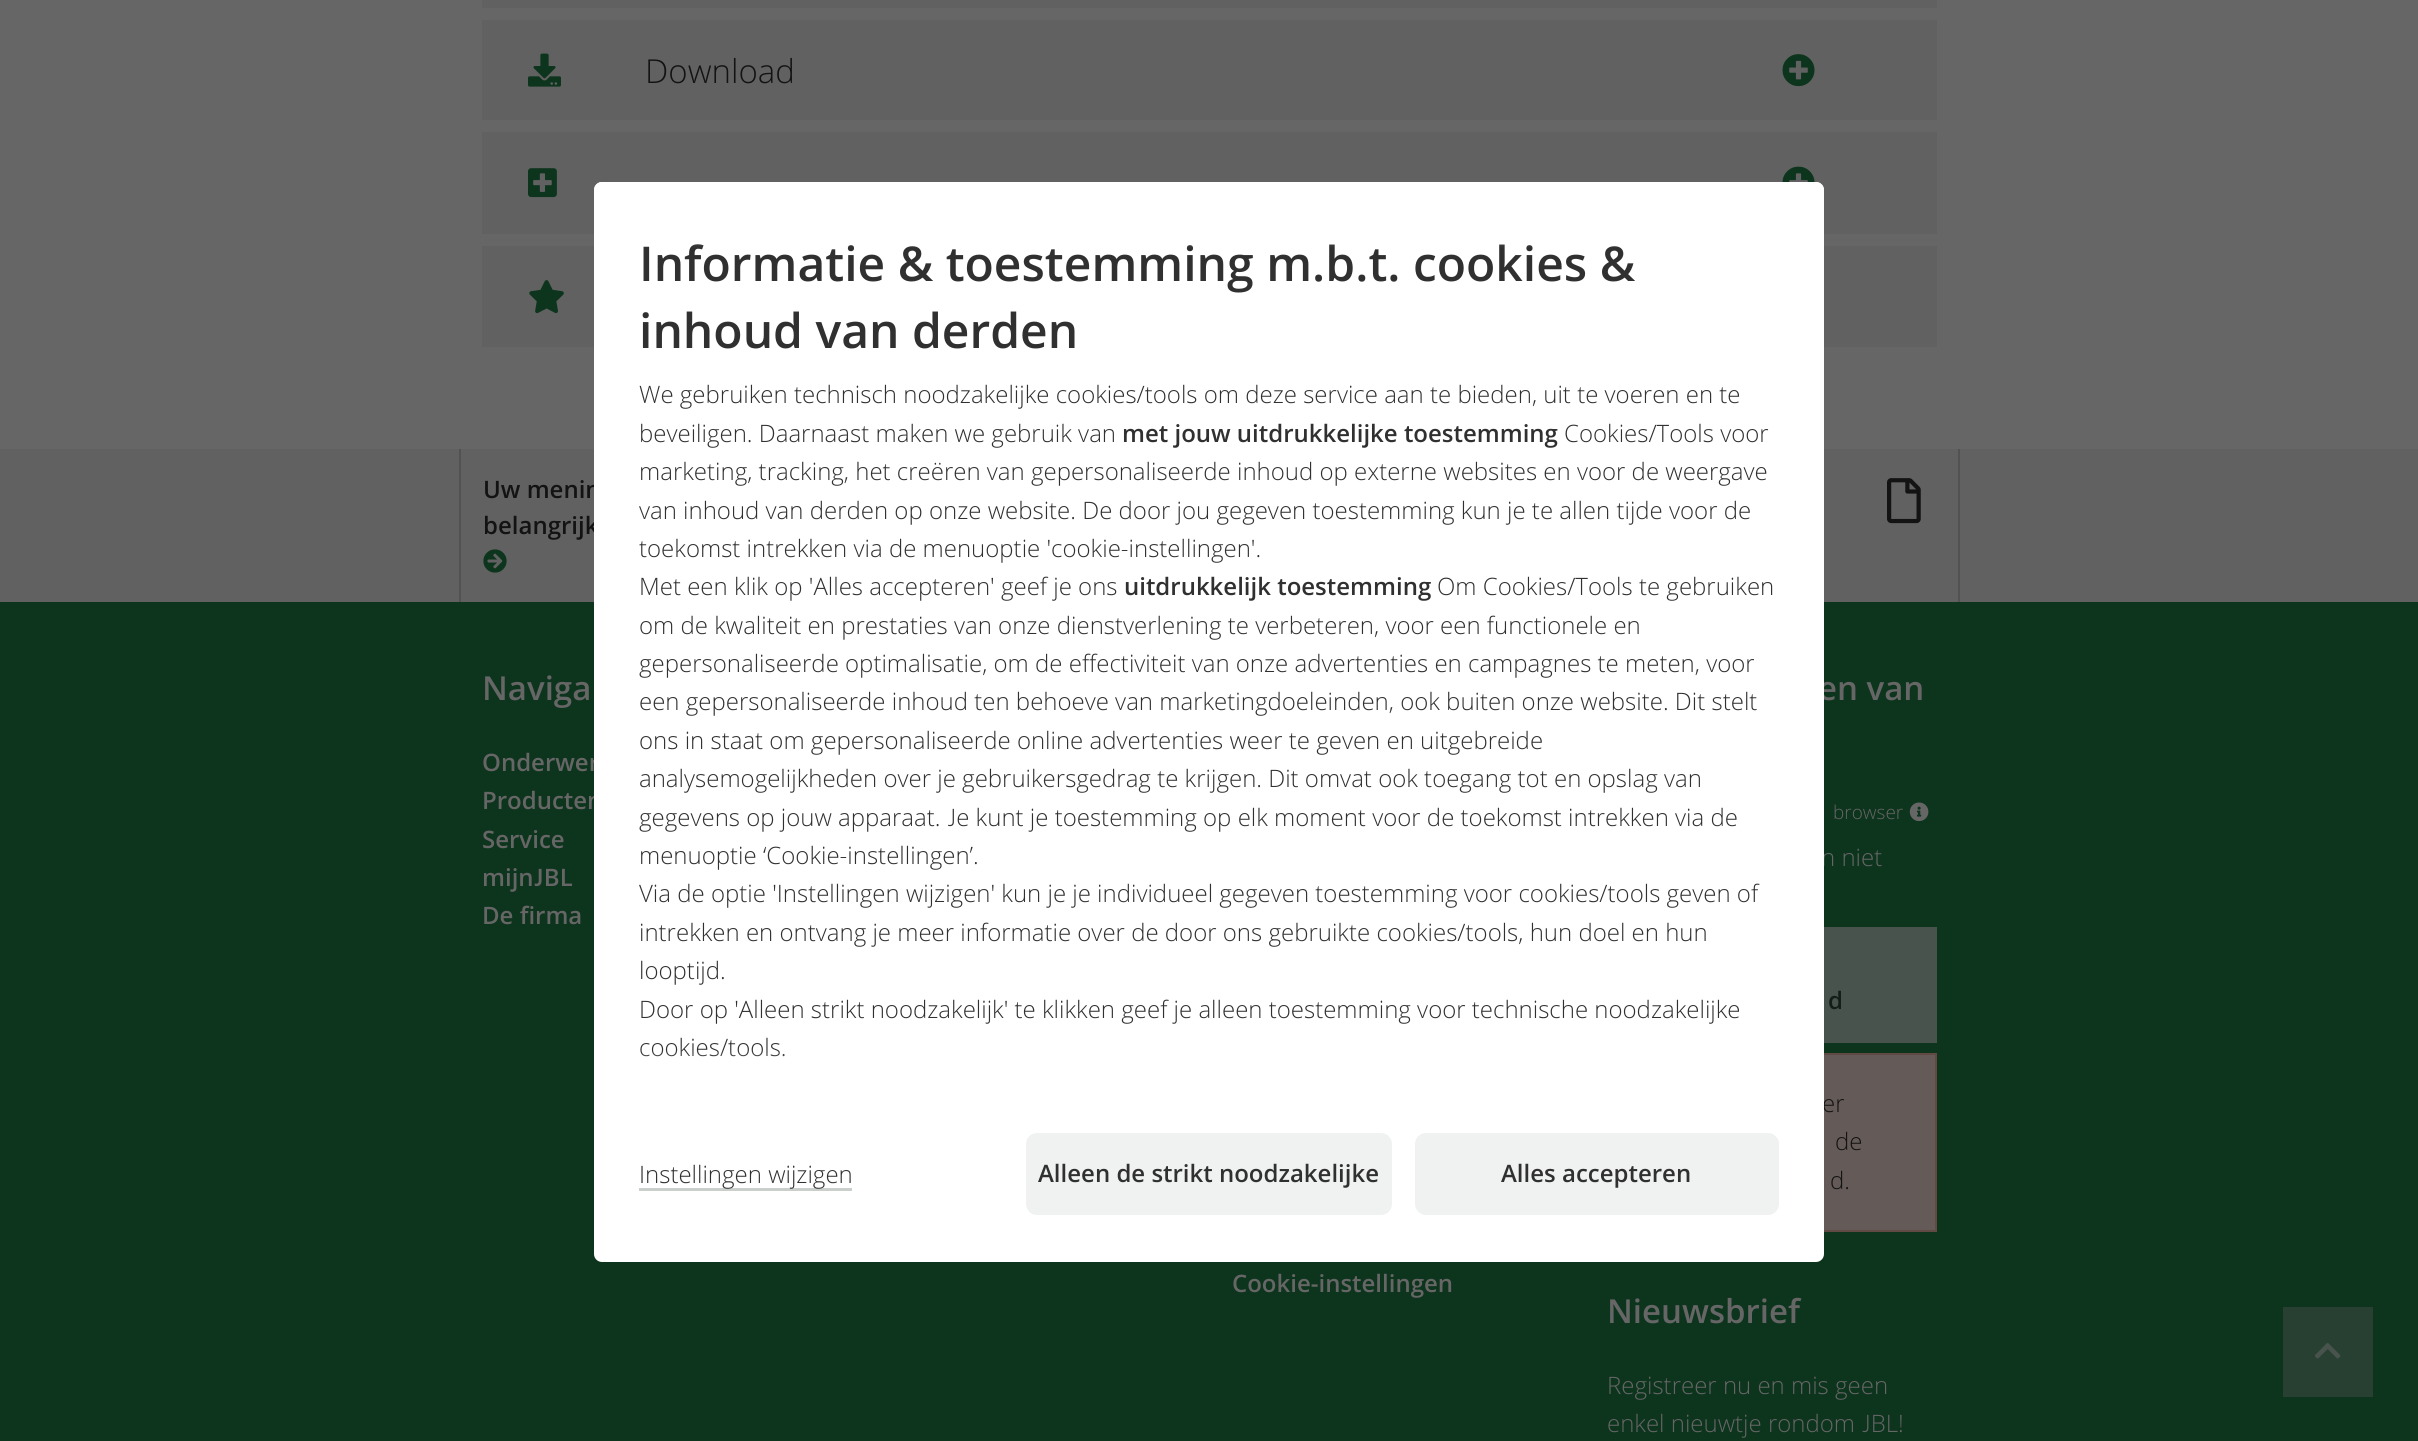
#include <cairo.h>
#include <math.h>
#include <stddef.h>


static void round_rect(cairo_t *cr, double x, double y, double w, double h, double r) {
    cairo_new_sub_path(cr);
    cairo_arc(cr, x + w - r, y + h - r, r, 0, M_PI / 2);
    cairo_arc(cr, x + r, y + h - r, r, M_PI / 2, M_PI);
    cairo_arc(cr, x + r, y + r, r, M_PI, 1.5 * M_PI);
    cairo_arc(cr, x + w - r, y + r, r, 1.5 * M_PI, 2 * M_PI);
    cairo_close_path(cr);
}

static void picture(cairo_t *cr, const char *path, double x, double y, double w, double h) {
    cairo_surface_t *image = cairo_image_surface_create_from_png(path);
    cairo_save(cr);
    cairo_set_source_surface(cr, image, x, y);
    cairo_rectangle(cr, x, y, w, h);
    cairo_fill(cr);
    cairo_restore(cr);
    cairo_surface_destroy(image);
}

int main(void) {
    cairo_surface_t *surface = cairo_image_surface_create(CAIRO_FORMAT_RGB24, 2418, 1441);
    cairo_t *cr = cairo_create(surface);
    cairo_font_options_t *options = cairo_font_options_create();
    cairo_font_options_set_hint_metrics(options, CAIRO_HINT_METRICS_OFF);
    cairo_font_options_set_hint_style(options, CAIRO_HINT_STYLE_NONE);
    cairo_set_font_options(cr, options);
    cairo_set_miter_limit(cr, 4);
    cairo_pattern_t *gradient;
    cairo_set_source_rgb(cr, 0.4, 0.4, 0.4);
    cairo_paint(cr);
    cairo_set_source_rgb(cr, 0.376, 0.38, 0.376);
    cairo_rectangle(cr, 482, 0, 1455, 8);
    cairo_fill(cr);
    cairo_rectangle(cr, 482, 20, 1455, 100);
    cairo_fill(cr);
    picture(cr, "img1.png", 528, 53, 33, 34);
    cairo_select_font_face(cr, "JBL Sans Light", CAIRO_FONT_SLANT_NORMAL, CAIRO_FONT_WEIGHT_NORMAL);
    cairo_set_font_size(cr, 33);
    cairo_set_source_rgb(cr, 0.075, 0.075, 0.075);
    cairo_move_to(cr, 645, 83);
    cairo_show_text(cr, "Download");
    picture(cr, "img2.png", 1782, 54, 33, 33);
    cairo_set_source_rgb(cr, 0.376, 0.38, 0.376);
    cairo_rectangle(cr, 482, 132, 1455, 102);
    cairo_fill(cr);
    picture(cr, "img3.png", 528, 168, 29, 30);
    picture(cr, "img4.png", 1782, 166, 33, 16);
    cairo_rectangle(cr, 482, 246, 1455, 101);
    cairo_fill(cr);
    picture(cr, "img5.png", 529, 280, 35, 34);
    cairo_rectangle(cr, 0, 449, 2418, 153);
    cairo_fill(cr);
    cairo_set_source_rgb(cr, 0.318, 0.325, 0.318);
    cairo_rectangle(cr, 459, 449, 2, 153);
    cairo_fill(cr);
    cairo_select_font_face(cr, "JBL Sans SemiBold", CAIRO_FONT_SLANT_NORMAL, CAIRO_FONT_WEIGHT_NORMAL);
    cairo_set_font_size(cr, 24);
    cairo_set_source_rgb(cr, 0.075, 0.075, 0.075);
    cairo_move_to(cr, 483, 498);
    cairo_show_text(cr, "Uw menin");
    cairo_move_to(cr, 483, 534);
    cairo_show_text(cr, "belangrijk");
    picture(cr, "img6.png", 483, 549, 24, 24);
    cairo_set_source_rgb(cr, 0.318, 0.325, 0.318);
    cairo_rectangle(cr, 1958, 449, 2, 153);
    cairo_fill(cr);
    picture(cr, "img7.png", 1887, 478, 34, 46);
    cairo_set_source_rgb(cr, 0.051, 0.204, 0.114);
    cairo_rectangle(cr, 0, 602, 2418, 839);
    cairo_fill(cr);
    cairo_set_font_size(cr, 33);
    cairo_set_source_rgb(cr, 0.4, 0.4, 0.4);
    cairo_move_to(cr, 482, 700);
    cairo_show_text(cr, "Naviga");
    cairo_set_font_size(cr, 24);
    cairo_move_to(cr, 482, 771);
    cairo_show_text(cr, "Onderwer");
    cairo_move_to(cr, 482, 809);
    cairo_show_text(cr, "Producten");
    cairo_move_to(cr, 482, 848);
    cairo_show_text(cr, "Service");
    cairo_move_to(cr, 482, 886);
    cairo_show_text(cr, "mijnJBL");
    cairo_move_to(cr, 482, 924);
    cairo_show_text(cr, "De firma");
    cairo_move_to(cr, 1232, 1292);
    cairo_show_text(cr, "Cookie-instellingen");
    cairo_set_font_size(cr, 33);
    cairo_move_to(cr, 1818, 700);
    cairo_show_text(cr, "en van");
    cairo_select_font_face(cr, "JBL Sans Light", CAIRO_FONT_SLANT_NORMAL, CAIRO_FONT_WEIGHT_NORMAL);
    cairo_set_font_size(cr, 19);
    cairo_move_to(cr, 1833, 819);
    cairo_show_text(cr, "browser");
    picture(cr, "img8.png", 1909, 802, 20, 20);
    cairo_set_font_size(cr, 24);
    cairo_move_to(cr, 1821, 866);
    cairo_show_text(cr, "n niet");
    cairo_set_source_rgb(cr, 0.278, 0.325, 0.298);
    cairo_rectangle(cr, 1824, 927, 113, 116);
    cairo_fill(cr);
    cairo_select_font_face(cr, "JBL Sans SemiBold", CAIRO_FONT_SLANT_NORMAL, CAIRO_FONT_WEIGHT_NORMAL);
    cairo_set_source_rgb(cr, 0.071, 0.118, 0.09);
    cairo_move_to(cr, 1828, 1009);
    cairo_show_text(cr, "d");
    cairo_set_source_rgb(cr, 0.392, 0.353, 0.341);
    cairo_rectangle(cr, 1824, 1055, 111, 175);
    cairo_fill(cr);
    cairo_rectangle(cr, 1608, 1054, 328, 177);
    cairo_set_source_rgb(cr, 0.384, 0.29, 0.267);
    cairo_stroke(cr);
    cairo_select_font_face(cr, "JBL Sans Light", CAIRO_FONT_SLANT_NORMAL, CAIRO_FONT_WEIGHT_NORMAL);
    cairo_set_source_rgb(cr, 0.075, 0.075, 0.075);
    cairo_move_to(cr, 1822, 1112);
    cairo_show_text(cr, "er");
    cairo_move_to(cr, 1835, 1150);
    cairo_show_text(cr, "de");
    cairo_move_to(cr, 1830, 1189);
    cairo_show_text(cr, "d.");
    cairo_select_font_face(cr, "JBL Sans SemiBold", CAIRO_FONT_SLANT_NORMAL, CAIRO_FONT_WEIGHT_NORMAL);
    cairo_set_font_size(cr, 33);
    cairo_set_source_rgb(cr, 0.4, 0.4, 0.4);
    cairo_move_to(cr, 1607, 1323);
    cairo_show_text(cr, "Nieuwsbrief");
    cairo_select_font_face(cr, "JBL Sans Light", CAIRO_FONT_SLANT_NORMAL, CAIRO_FONT_WEIGHT_NORMAL);
    cairo_set_font_size(cr, 24);
    cairo_move_to(cr, 1607, 1394);
    cairo_show_text(cr, "Registreer nu en mis geen");
    cairo_move_to(cr, 1607, 1432);
    cairo_show_text(cr, "enkel nieuwtje rondom JBL!");
    cairo_set_source_rgb(cr, 0.157, 0.251, 0.196);
    cairo_rectangle(cr, 2283, 1307, 90, 90);
    cairo_fill(cr);
    picture(cr, "img9.png", 2314, 1343, 27, 16);
    cairo_set_source_rgb(cr, 1, 1, 1);
    round_rect(cr, 594, 182, 1230, 1080, 8);
    cairo_fill(cr);
    cairo_select_font_face(cr, "JBL Sans SemiBold", CAIRO_FONT_SLANT_NORMAL, CAIRO_FONT_WEIGHT_NORMAL);
    cairo_set_font_size(cr, 48);
    cairo_set_source_rgb(cr, 0.188, 0.188, 0.188);
    cairo_move_to(cr, 639, 281);
    cairo_show_text(cr, "Informatie & toestemming m.b.t. cookies &");
    gradient = cairo_pattern_create_linear(1209, 181, 1209, 248);
    cairo_pattern_add_color_stop_rgba(gradient, 0, 1, 1, 1, 1);
    cairo_pattern_add_color_stop_rgba(gradient, 1, 1, 1, 1, 0);
    cairo_set_source(cr, gradient);
    cairo_pattern_destroy(gradient);
    round_rect(cr, 594, 182, 1230, 67, 8);
    cairo_fill(cr);
    cairo_set_source_rgb(cr, 0.188, 0.188, 0.188);
    cairo_move_to(cr, 639, 348);
    cairo_show_text(cr, "inhoud van derden");
    cairo_select_font_face(cr, "JBL Sans Light", CAIRO_FONT_SLANT_NORMAL, CAIRO_FONT_WEIGHT_NORMAL);
    cairo_set_font_size(cr, 24);
    cairo_move_to(cr, 639, 403);
    cairo_show_text(cr, "We gebruiken technisch noodzakelijke cookies/tools om deze service aan te bieden, uit te voeren en te");
    cairo_move_to(cr, 639, 442);
    cairo_show_text(cr, "beveiligen. Daarnaast maken we gebruik van");
    cairo_select_font_face(cr, "JBL Sans SemiBold", CAIRO_FONT_SLANT_NORMAL, CAIRO_FONT_WEIGHT_NORMAL);
    cairo_move_to(cr, 1122, 442);
    cairo_show_text(cr, "met jouw uitdrukkelijke toestemming");
    cairo_select_font_face(cr, "JBL Sans Light", CAIRO_FONT_SLANT_NORMAL, CAIRO_FONT_WEIGHT_NORMAL);
    cairo_move_to(cr, 1564, 442);
    cairo_show_text(cr, "Cookies/Tools voor");
    cairo_move_to(cr, 639, 480);
    cairo_show_text(cr, "marketing, tracking, het creëren van gepersonaliseerde inhoud op externe websites en voor de weergave");
    cairo_move_to(cr, 639, 519);
    cairo_show_text(cr, "van inhoud van derden op onze website. De door jou gegeven toestemming kun je te allen tijde voor de");
    cairo_move_to(cr, 639, 557);
    cairo_show_text(cr, "toekomst intrekken via de menuoptie 'cookie-instellingen'.");
    cairo_move_to(cr, 639, 595);
    cairo_show_text(cr, "Met een klik op 'Alles accepteren' geef je ons");
    cairo_select_font_face(cr, "JBL Sans SemiBold", CAIRO_FONT_SLANT_NORMAL, CAIRO_FONT_WEIGHT_NORMAL);
    cairo_move_to(cr, 1124, 595);
    cairo_show_text(cr, "uitdrukkelijk toestemming");
    cairo_select_font_face(cr, "JBL Sans Light", CAIRO_FONT_SLANT_NORMAL, CAIRO_FONT_WEIGHT_NORMAL);
    cairo_move_to(cr, 1437, 595);
    cairo_show_text(cr, "Om Cookies/Tools te gebruiken");
    cairo_move_to(cr, 639, 634);
    cairo_show_text(cr, "om de kwaliteit en prestaties van onze dienstverlening te verbeteren, voor een functionele en");
    cairo_move_to(cr, 639, 672);
    cairo_show_text(cr, "gepersonaliseerde optimalisatie, om de effectiviteit van onze advertenties en campagnes te meten, voor");
    cairo_move_to(cr, 639, 710);
    cairo_show_text(cr, "een gepersonaliseerde inhoud ten behoeve van marketingdoeleinden, ook buiten onze website. Dit stelt");
    cairo_move_to(cr, 639, 749);
    cairo_show_text(cr, "ons in staat om gepersonaliseerde online advertenties weer te geven en uitgebreide");
    cairo_move_to(cr, 639, 787);
    cairo_show_text(cr, "analysemogelijkheden over je gebruikersgedrag te krijgen. Dit omvat ook toegang tot en opslag van");
    cairo_move_to(cr, 639, 826);
    cairo_show_text(cr, "gegevens op jouw apparaat. Je kunt je toestemming op elk moment voor de toekomst intrekken via de");
    cairo_move_to(cr, 639, 864);
    cairo_show_text(cr, "menuoptie ‘Cookie-instellingen’.");
    cairo_move_to(cr, 639, 902);
    cairo_show_text(cr, "Via de optie 'Instellingen wijzigen' kun je je individueel gegeven toestemming voor cookies/tools geven of");
    cairo_move_to(cr, 639, 941);
    cairo_show_text(cr, "intrekken en ontvang je meer informatie over de door ons gebruikte cookies/tools, hun doel en hun");
    cairo_move_to(cr, 639, 979);
    cairo_show_text(cr, "looptijd.");
    cairo_move_to(cr, 639, 1018);
    cairo_show_text(cr, "Door op 'Alleen strikt noodzakelijk' te klikken geef je alleen toestemming voor technische noodzakelijke");
    cairo_move_to(cr, 639, 1056);
    cairo_show_text(cr, "cookies/tools.");
    gradient = cairo_pattern_create_linear(1209, 1049, 1209, 1117);
    cairo_pattern_add_color_stop_rgba(gradient, 0, 1, 1, 1, 0);
    cairo_pattern_add_color_stop_rgba(gradient, 1, 1, 1, 1, 1);
    cairo_set_source(cr, gradient);
    cairo_pattern_destroy(gradient);
    cairo_rectangle(cr, 640, 1050, 145, 7);
    cairo_fill(cr);
    cairo_set_source_rgb(cr, 0.792, 0.812, 0.796);
    cairo_rectangle(cr, 639, 1188, 213, 3);
    cairo_fill(cr);
    cairo_set_source_rgb(cr, 0.188, 0.188, 0.188);
    cairo_move_to(cr, 639, 1183);
    cairo_show_text(cr, "Instellingen wijzigen");
    cairo_set_source_rgb(cr, 0.937, 0.949, 0.941);
    round_rect(cr, 1026, 1133, 366, 82, 11);
    cairo_fill(cr);
    cairo_select_font_face(cr, "JBL Sans SemiBold", CAIRO_FONT_SLANT_NORMAL, CAIRO_FONT_WEIGHT_NORMAL);
    cairo_set_source_rgb(cr, 0.188, 0.188, 0.188);
    cairo_move_to(cr, 1038, 1182);
    cairo_show_text(cr, "Alleen de strikt noodzakelijke");
    cairo_set_source_rgb(cr, 0.937, 0.949, 0.941);
    round_rect(cr, 1415, 1133, 364, 82, 11);
    cairo_fill(cr);
    cairo_set_source_rgb(cr, 0.188, 0.188, 0.188);
    cairo_move_to(cr, 1501, 1182);
    cairo_show_text(cr, "Alles accepteren");
    cairo_surface_write_to_png(surface, "page.png");
    cairo_font_options_destroy(options);
    cairo_destroy(cr);
    cairo_surface_destroy(surface);
    return 0;
}
